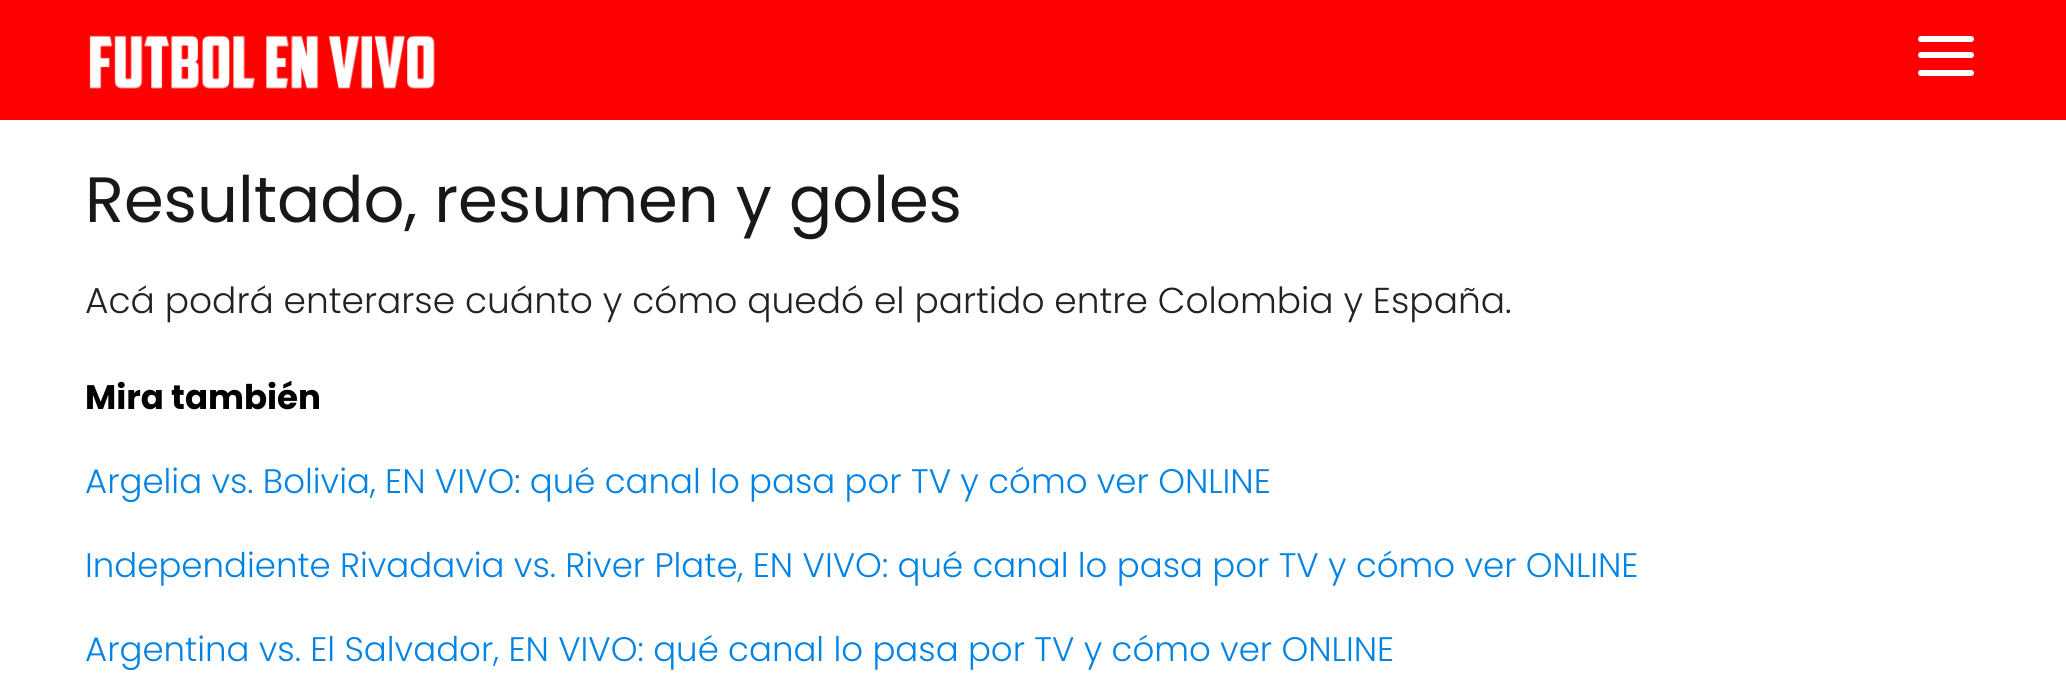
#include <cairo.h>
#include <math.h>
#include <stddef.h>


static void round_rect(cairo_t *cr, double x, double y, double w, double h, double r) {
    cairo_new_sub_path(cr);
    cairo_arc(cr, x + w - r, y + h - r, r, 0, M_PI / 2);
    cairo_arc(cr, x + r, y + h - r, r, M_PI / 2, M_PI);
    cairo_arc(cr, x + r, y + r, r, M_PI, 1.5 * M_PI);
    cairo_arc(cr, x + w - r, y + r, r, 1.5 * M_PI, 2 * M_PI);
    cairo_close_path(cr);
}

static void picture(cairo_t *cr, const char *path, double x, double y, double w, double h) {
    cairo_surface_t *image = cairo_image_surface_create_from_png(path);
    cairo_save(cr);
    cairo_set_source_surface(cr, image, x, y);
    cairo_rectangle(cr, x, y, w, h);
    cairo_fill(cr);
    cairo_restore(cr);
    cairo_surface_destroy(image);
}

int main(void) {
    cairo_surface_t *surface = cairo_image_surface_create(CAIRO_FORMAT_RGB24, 2066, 679);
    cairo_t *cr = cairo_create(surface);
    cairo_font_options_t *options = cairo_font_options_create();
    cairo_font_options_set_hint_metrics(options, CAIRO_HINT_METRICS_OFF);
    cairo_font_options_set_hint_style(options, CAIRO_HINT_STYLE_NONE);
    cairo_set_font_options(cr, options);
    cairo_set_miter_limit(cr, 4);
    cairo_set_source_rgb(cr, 1, 1, 1);
    cairo_paint(cr);
    cairo_set_source_rgb(cr, 1, 0, 0);
    cairo_rectangle(cr, 0, 0, 2066, 120);
    cairo_fill(cr);
    picture(cr, "img1.png", 89, 35, 346, 54);
    cairo_set_source_rgb(cr, 1, 1, 1);
    round_rect(cr, 1918, 36, 56, 6, 3);
    cairo_fill(cr);
    round_rect(cr, 1918, 52, 56, 6, 3);
    cairo_fill(cr);
    round_rect(cr, 1918, 70, 56, 6, 3);
    cairo_fill(cr);
    cairo_select_font_face(cr, "Poppins", CAIRO_FONT_SLANT_NORMAL, CAIRO_FONT_WEIGHT_NORMAL);
    cairo_set_font_size(cr, 64);
    cairo_set_source_rgb(cr, 0.094, 0.094, 0.094);
    cairo_move_to(cr, 85, 222);
    cairo_show_text(cr, "Resultado, resumen y goles");
    cairo_select_font_face(cr, "Poppins Light", CAIRO_FONT_SLANT_NORMAL, CAIRO_FONT_WEIGHT_NORMAL);
    cairo_set_font_size(cr, 36);
    cairo_set_source_rgb(cr, 0.133, 0.133, 0.133);
    cairo_move_to(cr, 85, 313);
    cairo_show_text(cr, "Acá podrá enterarse cuánto y cómo quedó el partido entre Colombia y España.");
    cairo_select_font_face(cr, "Poppins", CAIRO_FONT_SLANT_NORMAL, CAIRO_FONT_WEIGHT_BOLD);
    cairo_set_font_size(cr, 34);
    cairo_set_source_rgb(cr, 0, 0, 0);
    cairo_move_to(cr, 85, 409);
    cairo_show_text(cr, "Mira también");
    cairo_select_font_face(cr, "Poppins Light", CAIRO_FONT_SLANT_NORMAL, CAIRO_FONT_WEIGHT_NORMAL);
    cairo_set_source_rgb(cr, 0.004, 0.514, 0.894);
    cairo_move_to(cr, 85, 493);
    cairo_show_text(cr, "Argelia vs. Bolivia, EN VIVO: qué canal lo pasa por TV y cómo ver ONLINE");
    cairo_move_to(cr, 85, 577);
    cairo_show_text(cr, "Independiente Rivadavia vs. River Plate, EN VIVO: qué canal lo pasa por TV y cómo ver ONLINE");
    cairo_move_to(cr, 85, 661);
    cairo_show_text(cr, "Argentina vs. El Salvador, EN VIVO: qué canal lo pasa por TV y cómo ver ONLINE");
    cairo_surface_write_to_png(surface, "page.png");
    cairo_font_options_destroy(options);
    cairo_destroy(cr);
    cairo_surface_destroy(surface);
    return 0;
}
